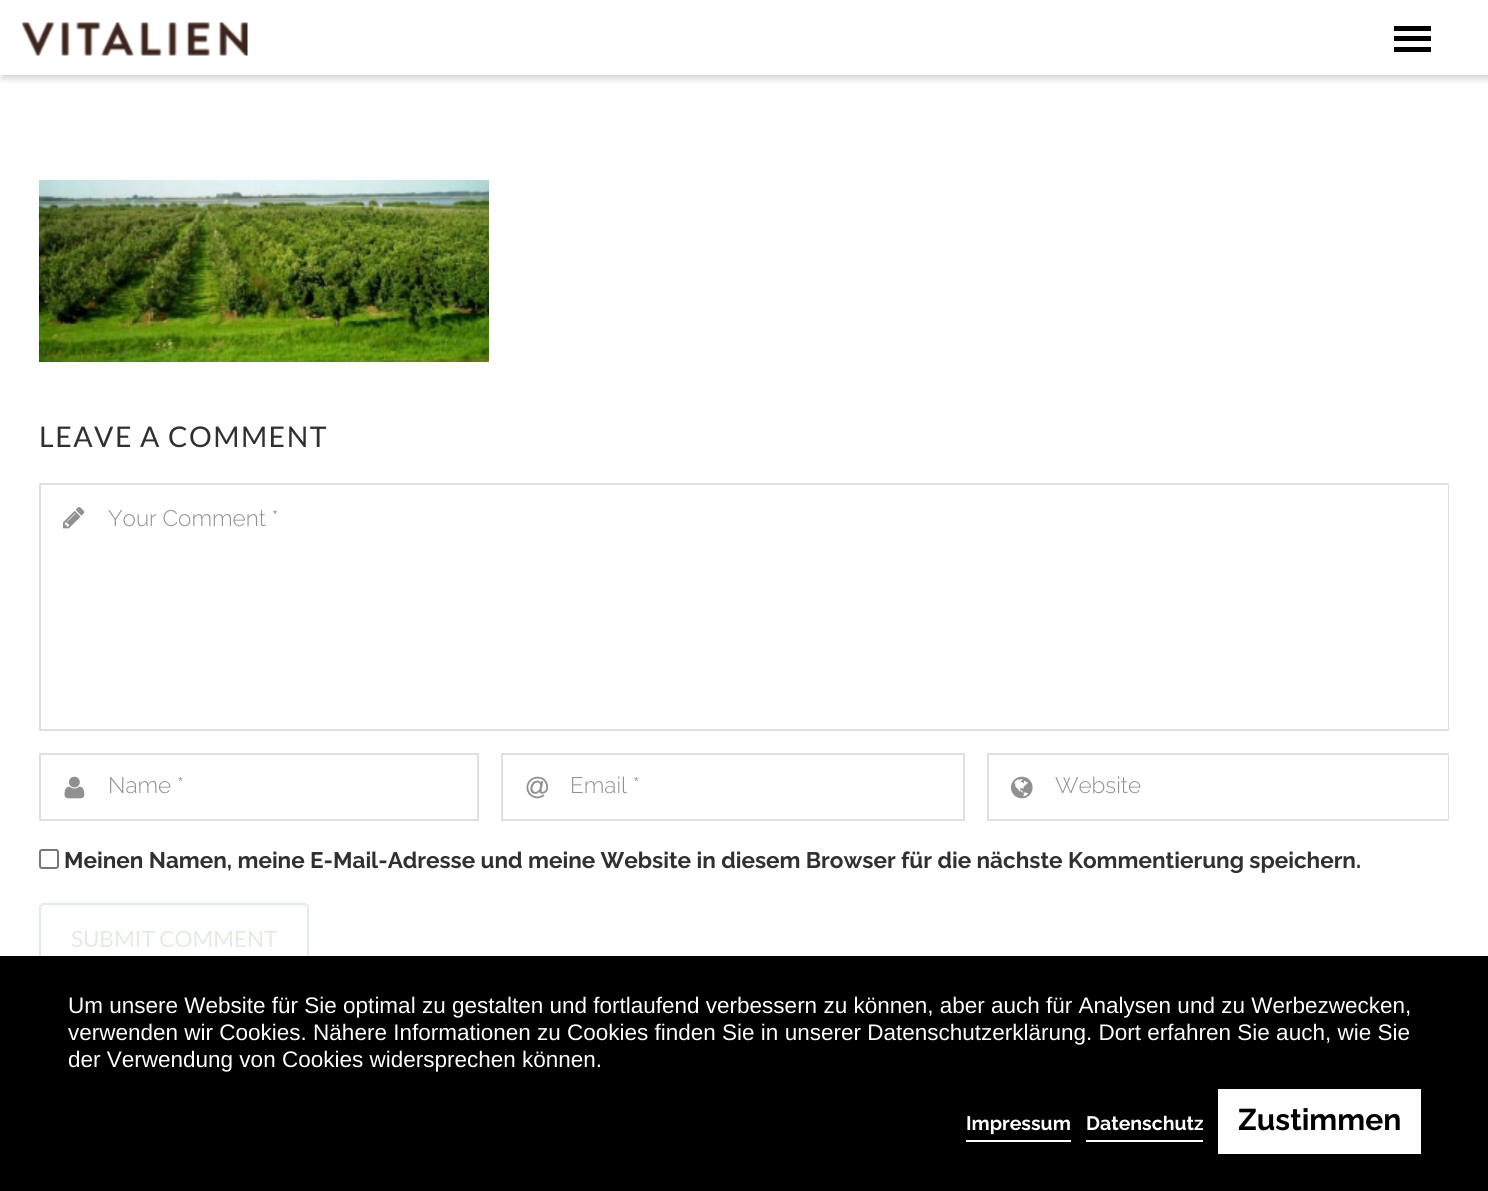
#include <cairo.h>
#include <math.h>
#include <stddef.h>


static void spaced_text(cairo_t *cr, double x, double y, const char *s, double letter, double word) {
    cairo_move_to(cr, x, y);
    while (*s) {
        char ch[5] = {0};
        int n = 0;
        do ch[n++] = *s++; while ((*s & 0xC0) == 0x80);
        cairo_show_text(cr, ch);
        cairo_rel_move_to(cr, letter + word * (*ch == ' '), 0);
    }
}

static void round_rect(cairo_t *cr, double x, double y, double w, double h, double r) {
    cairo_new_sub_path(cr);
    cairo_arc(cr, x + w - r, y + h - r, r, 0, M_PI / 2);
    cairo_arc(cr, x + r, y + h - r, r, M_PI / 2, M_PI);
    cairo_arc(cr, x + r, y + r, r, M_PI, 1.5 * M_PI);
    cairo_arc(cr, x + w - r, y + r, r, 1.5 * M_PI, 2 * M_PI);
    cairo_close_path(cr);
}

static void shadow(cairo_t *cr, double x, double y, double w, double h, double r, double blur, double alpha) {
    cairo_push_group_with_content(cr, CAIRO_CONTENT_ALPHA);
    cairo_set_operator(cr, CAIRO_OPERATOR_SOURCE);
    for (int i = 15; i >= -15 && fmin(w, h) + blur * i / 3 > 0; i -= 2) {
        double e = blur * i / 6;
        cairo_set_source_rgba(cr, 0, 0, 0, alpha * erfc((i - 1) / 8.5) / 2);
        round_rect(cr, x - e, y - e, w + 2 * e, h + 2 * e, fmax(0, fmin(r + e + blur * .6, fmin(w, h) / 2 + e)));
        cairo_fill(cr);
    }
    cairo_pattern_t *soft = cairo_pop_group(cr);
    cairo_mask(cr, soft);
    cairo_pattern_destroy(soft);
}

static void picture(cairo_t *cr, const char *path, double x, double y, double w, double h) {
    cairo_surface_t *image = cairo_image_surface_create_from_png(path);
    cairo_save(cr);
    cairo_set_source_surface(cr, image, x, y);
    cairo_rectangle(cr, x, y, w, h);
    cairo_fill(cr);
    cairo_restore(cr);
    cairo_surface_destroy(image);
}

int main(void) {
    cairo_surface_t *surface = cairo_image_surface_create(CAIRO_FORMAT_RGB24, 1488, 1191);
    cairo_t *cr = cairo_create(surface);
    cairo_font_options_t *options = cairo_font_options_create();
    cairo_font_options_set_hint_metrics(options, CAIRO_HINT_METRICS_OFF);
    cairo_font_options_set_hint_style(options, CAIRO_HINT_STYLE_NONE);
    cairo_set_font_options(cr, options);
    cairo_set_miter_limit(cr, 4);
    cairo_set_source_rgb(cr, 1, 1, 1);
    cairo_paint(cr);
    cairo_save(cr);
    cairo_rectangle(cr, 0, 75, 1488, 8);
    cairo_clip(cr);
    cairo_set_source_rgb(cr, 0, 0, 0);
    shadow(cr, 2, 3, 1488, 75, 0, 4, 0.2);
    cairo_restore(cr);
    picture(cr, "img1.png", 22, 22, 226, 34);
    cairo_set_source_rgb(cr, 0, 0, 0);
    cairo_rectangle(cr, 1394, 26, 37, 5);
    cairo_fill(cr);
    cairo_rectangle(cr, 1394, 36, 37, 5);
    cairo_fill(cr);
    cairo_rectangle(cr, 1394, 47, 37, 5);
    cairo_fill(cr);
    picture(cr, "img2.png", 39, 180, 450, 182);
    cairo_select_font_face(cr, "Lato", CAIRO_FONT_SLANT_NORMAL, CAIRO_FONT_WEIGHT_NORMAL);
    cairo_set_font_size(cr, 28.5);
    cairo_set_source_rgb(cr, 0.188, 0.188, 0.188);
    spaced_text(cr, 39, 447, "LEAVE A COMMENT", 1.5, 0);
    cairo_rectangle(cr, 40, 484, 1408, 246);
    cairo_set_source_rgb(cr, 0.875, 0.875, 0.875);
    cairo_stroke(cr);
    picture(cr, "img3.png", 63, 507, 22, 22);
    cairo_set_source_rgb(cr, 1, 1, 1);
    cairo_rectangle(cr, 1447, 485, 1, 244);
    cairo_fill(cr);
    cairo_select_font_face(cr, "Raleway Light", CAIRO_FONT_SLANT_NORMAL, CAIRO_FONT_WEIGHT_NORMAL);
    cairo_set_font_size(cr, 22.5);
    cairo_set_source_rgb(cr, 0.565, 0.565, 0.565);
    cairo_move_to(cr, 108, 526);
    cairo_show_text(cr, "Your Comment *");
    cairo_rectangle(cr, 40, 754, 438, 66);
    cairo_set_source_rgb(cr, 0.875, 0.875, 0.875);
    cairo_stroke(cr);
    picture(cr, "img4.png", 64, 776, 21, 23);
    cairo_set_source_rgb(cr, 0.565, 0.565, 0.565);
    cairo_move_to(cr, 108, 793);
    cairo_show_text(cr, "Name *");
    cairo_rectangle(cr, 502, 754, 462, 66);
    cairo_set_source_rgb(cr, 0.875, 0.875, 0.875);
    cairo_stroke(cr);
    picture(cr, "img5.png", 526, 776, 23, 23);
    cairo_set_source_rgb(cr, 0.565, 0.565, 0.565);
    cairo_move_to(cr, 570, 793);
    cairo_show_text(cr, "Email *");
    cairo_rectangle(cr, 988, 754, 460, 66);
    cairo_set_source_rgb(cr, 0.875, 0.875, 0.875);
    cairo_stroke(cr);
    picture(cr, "img6.png", 1011, 776, 22, 23);
    cairo_set_source_rgb(cr, 1, 1, 1);
    cairo_rectangle(cr, 1447, 755, 1, 64);
    cairo_fill(cr);
    cairo_set_source_rgb(cr, 0.565, 0.565, 0.565);
    cairo_move_to(cr, 1055, 793);
    cairo_show_text(cr, "Website");
    round_rect(cr, 40, 850, 18, 18, 2);
    cairo_set_source_rgb(cr, 0.463, 0.463, 0.463);
    cairo_stroke(cr);
    cairo_select_font_face(cr, "Raleway", CAIRO_FONT_SLANT_NORMAL, CAIRO_FONT_WEIGHT_BOLD);
    cairo_set_source_rgb(cr, 0.188, 0.188, 0.188);
    cairo_move_to(cr, 64, 868);
    cairo_show_text(cr, "Meinen Namen, meine E-Mail-Adresse und meine Website in diesem Browser für die nächste Kommentierung speichern.");
    round_rect(cr, 40, 904, 268, 69, 4);
    cairo_set_source_rgb(cr, 0.886, 0.929, 0.882);
    cairo_stroke(cr);
    cairo_select_font_face(cr, "Lato", CAIRO_FONT_SLANT_NORMAL, CAIRO_FONT_WEIGHT_NORMAL);
    cairo_move_to(cr, 71, 947);
    cairo_show_text(cr, "SUBMIT COMMENT");
    cairo_set_source_rgb(cr, 0, 0, 0);
    cairo_rectangle(cr, 0, 956, 1488, 235);
    cairo_fill(cr);
    cairo_select_font_face(cr, "Liberation Sans", CAIRO_FONT_SLANT_NORMAL, CAIRO_FONT_WEIGHT_NORMAL);
    cairo_set_source_rgb(cr, 1, 1, 1);
    cairo_move_to(cr, 68, 1013);
    cairo_show_text(cr, "Um unsere Website für Sie optimal zu gestalten und fortlaufend verbessern zu können, aber auch für Analysen und zu Werbezwecken,");
    cairo_move_to(cr, 68, 1040);
    cairo_show_text(cr, "verwenden wir Cookies. Nähere Informationen zu Cookies finden Sie in unserer Datenschutzerklärung. Dort erfahren Sie auch, wie Sie");
    cairo_move_to(cr, 68, 1067);
    cairo_show_text(cr, "der Verwendung von Cookies widersprechen können.");
    cairo_rectangle(cr, 966, 1140, 105, 2);
    cairo_fill(cr);
    cairo_select_font_face(cr, "Raleway", CAIRO_FONT_SLANT_NORMAL, CAIRO_FONT_WEIGHT_BOLD);
    cairo_set_font_size(cr, 19.5);
    cairo_move_to(cr, 966, 1130);
    cairo_show_text(cr, "Impressum");
    cairo_rectangle(cr, 1086, 1140, 117, 2);
    cairo_fill(cr);
    cairo_move_to(cr, 1086, 1130);
    cairo_show_text(cr, "Datenschutz");
    cairo_rectangle(cr, 1218, 1089, 203, 65);
    cairo_fill(cr);
    cairo_set_font_size(cr, 30);
    cairo_set_source_rgb(cr, 0, 0, 0);
    cairo_move_to(cr, 1238, 1130);
    cairo_show_text(cr, "Zustimmen");
    cairo_surface_write_to_png(surface, "page.png");
    cairo_font_options_destroy(options);
    cairo_destroy(cr);
    cairo_surface_destroy(surface);
    return 0;
}
